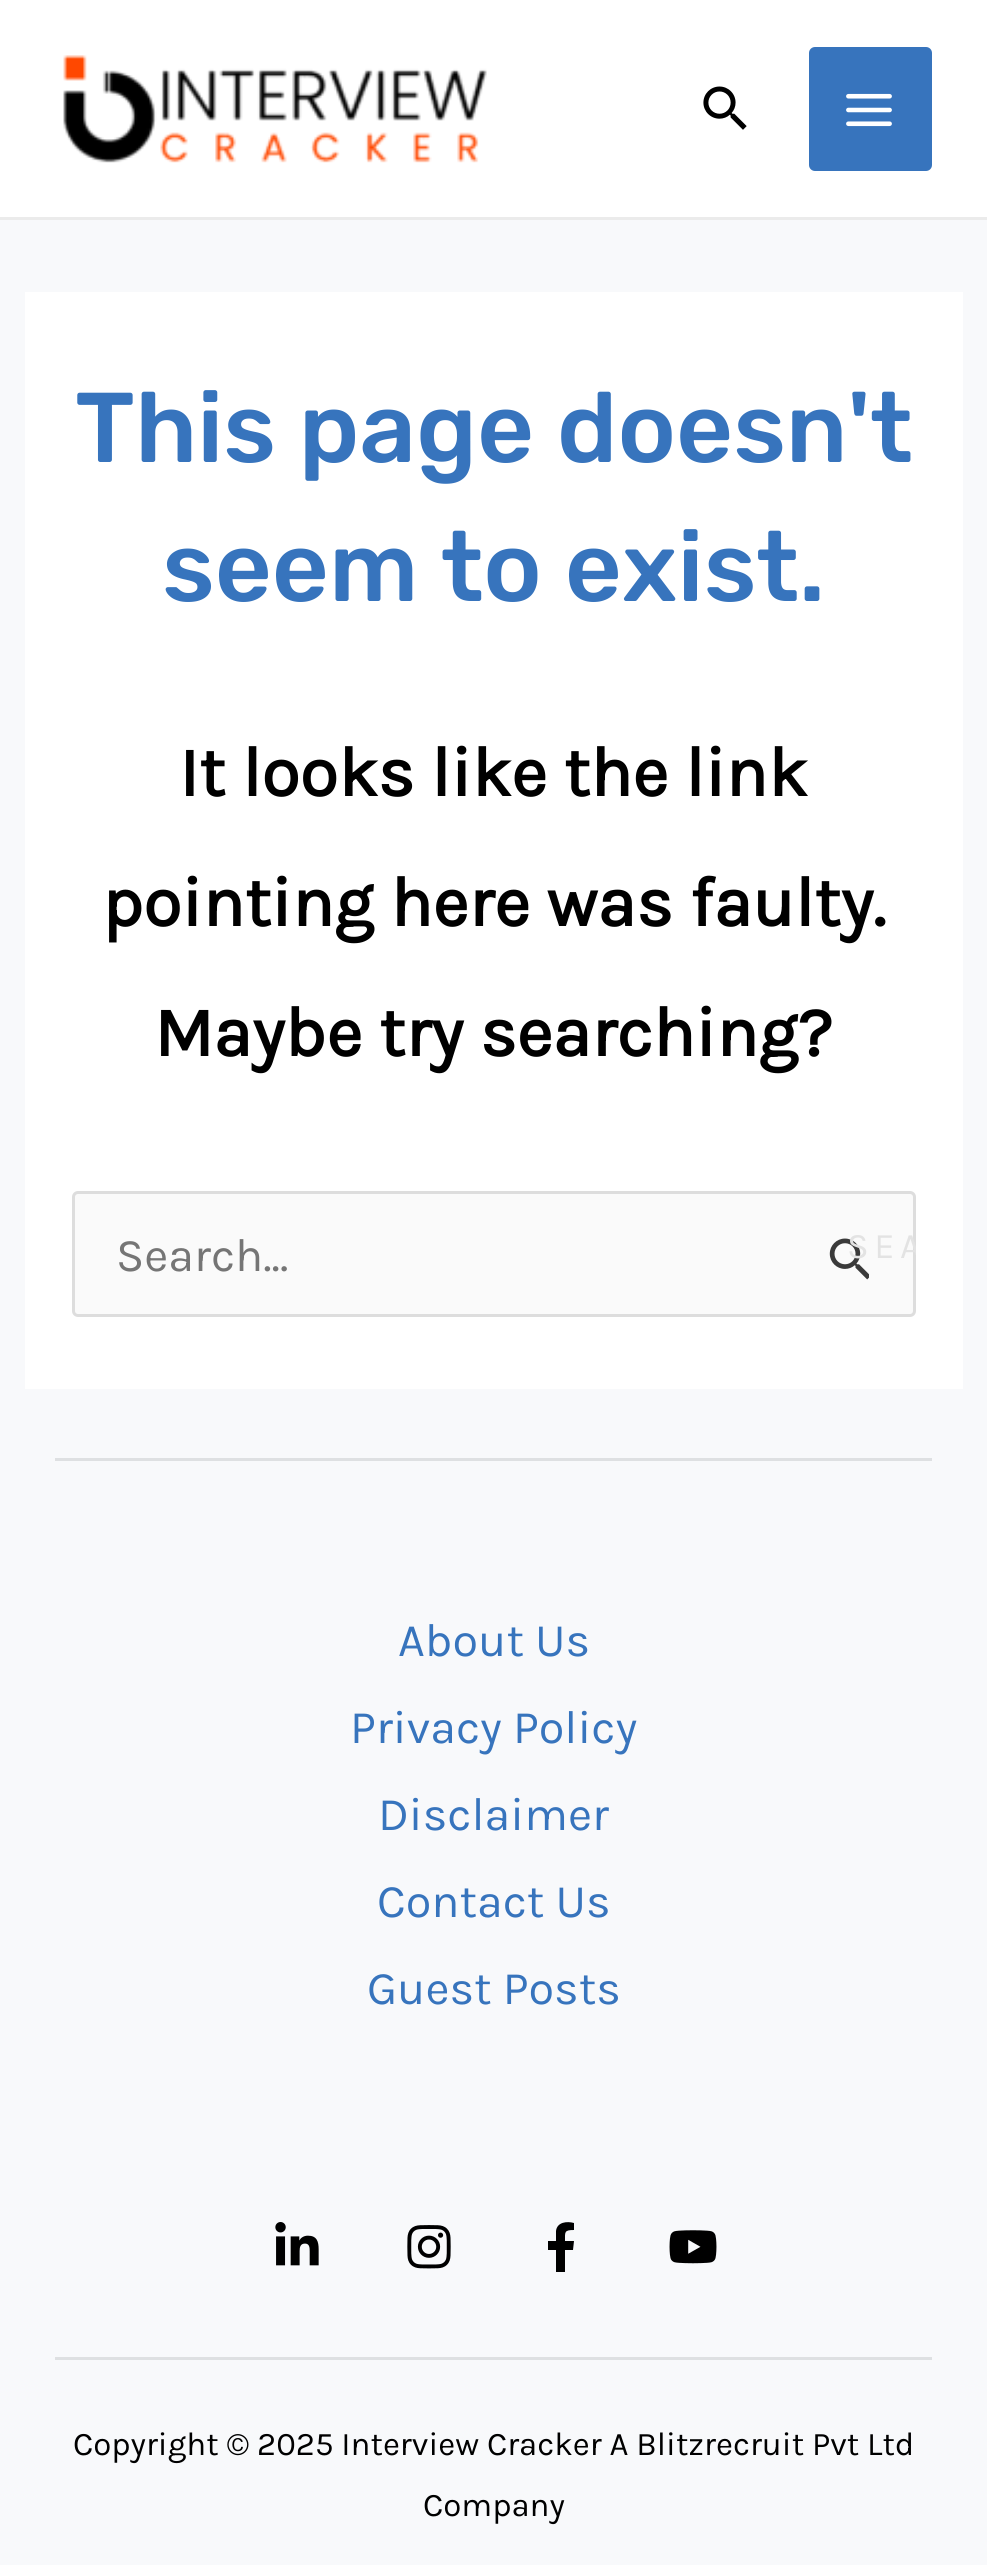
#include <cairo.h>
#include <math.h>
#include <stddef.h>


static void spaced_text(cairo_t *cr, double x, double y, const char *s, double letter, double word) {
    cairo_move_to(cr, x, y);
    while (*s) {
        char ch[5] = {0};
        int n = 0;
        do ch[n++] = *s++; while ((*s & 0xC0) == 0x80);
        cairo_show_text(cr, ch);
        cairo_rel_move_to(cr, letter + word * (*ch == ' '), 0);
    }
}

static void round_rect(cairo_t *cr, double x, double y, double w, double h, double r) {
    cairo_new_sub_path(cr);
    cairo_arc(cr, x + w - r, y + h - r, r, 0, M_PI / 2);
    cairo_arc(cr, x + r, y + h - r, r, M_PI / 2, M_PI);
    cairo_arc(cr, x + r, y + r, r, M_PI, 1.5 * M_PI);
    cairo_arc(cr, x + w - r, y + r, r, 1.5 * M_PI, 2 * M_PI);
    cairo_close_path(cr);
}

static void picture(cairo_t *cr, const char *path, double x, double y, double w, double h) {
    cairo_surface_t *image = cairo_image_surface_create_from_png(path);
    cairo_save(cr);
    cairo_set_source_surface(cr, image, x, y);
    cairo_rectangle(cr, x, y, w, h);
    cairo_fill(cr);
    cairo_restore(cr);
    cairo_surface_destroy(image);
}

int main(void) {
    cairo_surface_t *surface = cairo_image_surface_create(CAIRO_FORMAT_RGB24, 987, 2565);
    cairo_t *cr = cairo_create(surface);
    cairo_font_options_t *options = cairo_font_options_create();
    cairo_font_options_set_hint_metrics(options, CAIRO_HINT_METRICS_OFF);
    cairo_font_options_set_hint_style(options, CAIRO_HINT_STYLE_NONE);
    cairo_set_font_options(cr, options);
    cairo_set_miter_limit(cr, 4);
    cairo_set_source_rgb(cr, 0.969, 0.976, 0.984);
    cairo_paint(cr);
    cairo_set_source_rgb(cr, 1, 1, 1);
    cairo_rectangle(cr, 0, 0, 987, 217);
    cairo_fill(cr);
    cairo_set_source_rgb(cr, 0.918, 0.918, 0.918);
    cairo_rectangle(cr, 0, 217, 987, 3);
    cairo_fill(cr);
    picture(cr, "img1.png", 63, 55, 424, 108);
    picture(cr, "img2.png", 703, 86, 44, 44);
    cairo_set_source_rgb(cr, 0.216, 0.455, 0.741);
    round_rect(cr, 809, 47, 123, 124, 6);
    cairo_fill(cr);
    picture(cr, "img3.png", 846, 93, 46, 34);
    cairo_set_source_rgb(cr, 1, 1, 1);
    cairo_rectangle(cr, 25, 292, 938, 1097);
    cairo_fill(cr);
    cairo_select_font_face(cr, "Rubik Medium", CAIRO_FONT_SLANT_NORMAL, CAIRO_FONT_WEIGHT_NORMAL);
    cairo_set_font_size(cr, 99);
    cairo_set_source_rgb(cr, 0.216, 0.455, 0.741);
    cairo_move_to(cr, 75, 462);
    cairo_show_text(cr, "This page doesn't");
    cairo_move_to(cr, 162, 601);
    cairo_show_text(cr, "seem to exist.");
    cairo_select_font_face(cr, "Karla", CAIRO_FONT_SLANT_NORMAL, CAIRO_FONT_WEIGHT_BOLD);
    cairo_set_font_size(cr, 70.1);
    cairo_set_source_rgb(cr, 0, 0, 0);
    cairo_move_to(cr, 179, 796);
    cairo_show_text(cr, "It looks like the link");
    cairo_move_to(cr, 102, 926);
    cairo_show_text(cr, "pointing here was faulty.");
    cairo_move_to(cr, 154, 1056);
    cairo_show_text(cr, "Maybe try searching?");
    cairo_set_source_rgb(cr, 0.98, 0.98, 0.98);
    round_rect(cr, 73.5, 1192.5, 841, 123, 4.5);
    cairo_fill_preserve(cr);
    cairo_set_source_rgb(cr, 0.867, 0.867, 0.867);
    cairo_set_line_width(cr, 3);
    cairo_stroke(cr);
    cairo_select_font_face(cr, "Karla", CAIRO_FONT_SLANT_NORMAL, CAIRO_FONT_WEIGHT_NORMAL);
    cairo_set_font_size(cr, 46.75);
    cairo_set_source_rgb(cr, 0.459, 0.459, 0.459);
    cairo_move_to(cr, 116, 1271);
    cairo_show_text(cr, "Search...");
    picture(cr, "img4.png", 829, 1238, 40, 42);
    cairo_save(cr);
    round_rect(cr, 792, 1191, 124, 107, 6);
    cairo_clip(cr);
    cairo_set_font_size(cr, 36);
    cairo_set_source_rgb(cr, 0.89, 0.89, 0.89);
    spaced_text(cr, 847, 1258, "SEA", 5.5, 0);
    cairo_restore(cr);
    cairo_set_source_rgb(cr, 0.871, 0.878, 0.886);
    cairo_rectangle(cr, 55, 1458, 877, 3);
    cairo_fill(cr);
    cairo_set_source_rgb(cr, 0.216, 0.455, 0.741);
    cairo_move_to(cr, 398, 1656);
    cairo_show_text(cr, "About Us");
    cairo_move_to(cr, 350, 1743);
    cairo_show_text(cr, "Privacy Policy");
    cairo_move_to(cr, 378, 1830);
    cairo_show_text(cr, "Disclaimer");
    cairo_move_to(cr, 377, 1917);
    cairo_show_text(cr, "Contact Us");
    cairo_move_to(cr, 367, 2004);
    cairo_show_text(cr, "Guest Posts");
    picture(cr, "img5.png", 275, 2222, 44, 44);
    picture(cr, "img6.png", 407, 2225, 44, 44);
    cairo_set_source_rgb(cr, 0, 0, 0);
    cairo_new_path(cr);
    cairo_move_to(cr, 573, 2250);
    cairo_line_to(cr, 574, 2241);
    cairo_line_to(cr, 565, 2241);
    cairo_curve_to(cr, 565, 2232, 564, 2230, 574, 2230);
    cairo_line_to(cr, 574, 2223);
    cairo_curve_to(cr, 567, 2221, 557, 2222, 556, 2231);
    cairo_line_to(cr, 556, 2241);
    cairo_line_to(cr, 548, 2241);
    cairo_line_to(cr, 548, 2250);
    cairo_line_to(cr, 556, 2250);
    cairo_line_to(cr, 556, 2272);
    cairo_line_to(cr, 565, 2272);
    cairo_line_to(cr, 565, 2250);
    cairo_close_path(cr);
    cairo_fill(cr);
    picture(cr, "img7.png", 669, 2230, 48, 34);
    cairo_set_source_rgb(cr, 0.871, 0.878, 0.886);
    cairo_rectangle(cr, 55, 2357, 877, 3);
    cairo_fill(cr);
    cairo_set_font_size(cr, 33);
    cairo_set_source_rgb(cr, 0, 0, 0);
    cairo_move_to(cr, 73, 2455);
    cairo_show_text(cr, "Copyright © 2025 Interview Cracker A Blitzrecruit Pvt Ltd");
    cairo_move_to(cr, 423, 2516);
    cairo_show_text(cr, "Company");
    cairo_surface_write_to_png(surface, "page.png");
    cairo_font_options_destroy(options);
    cairo_destroy(cr);
    cairo_surface_destroy(surface);
    return 0;
}
